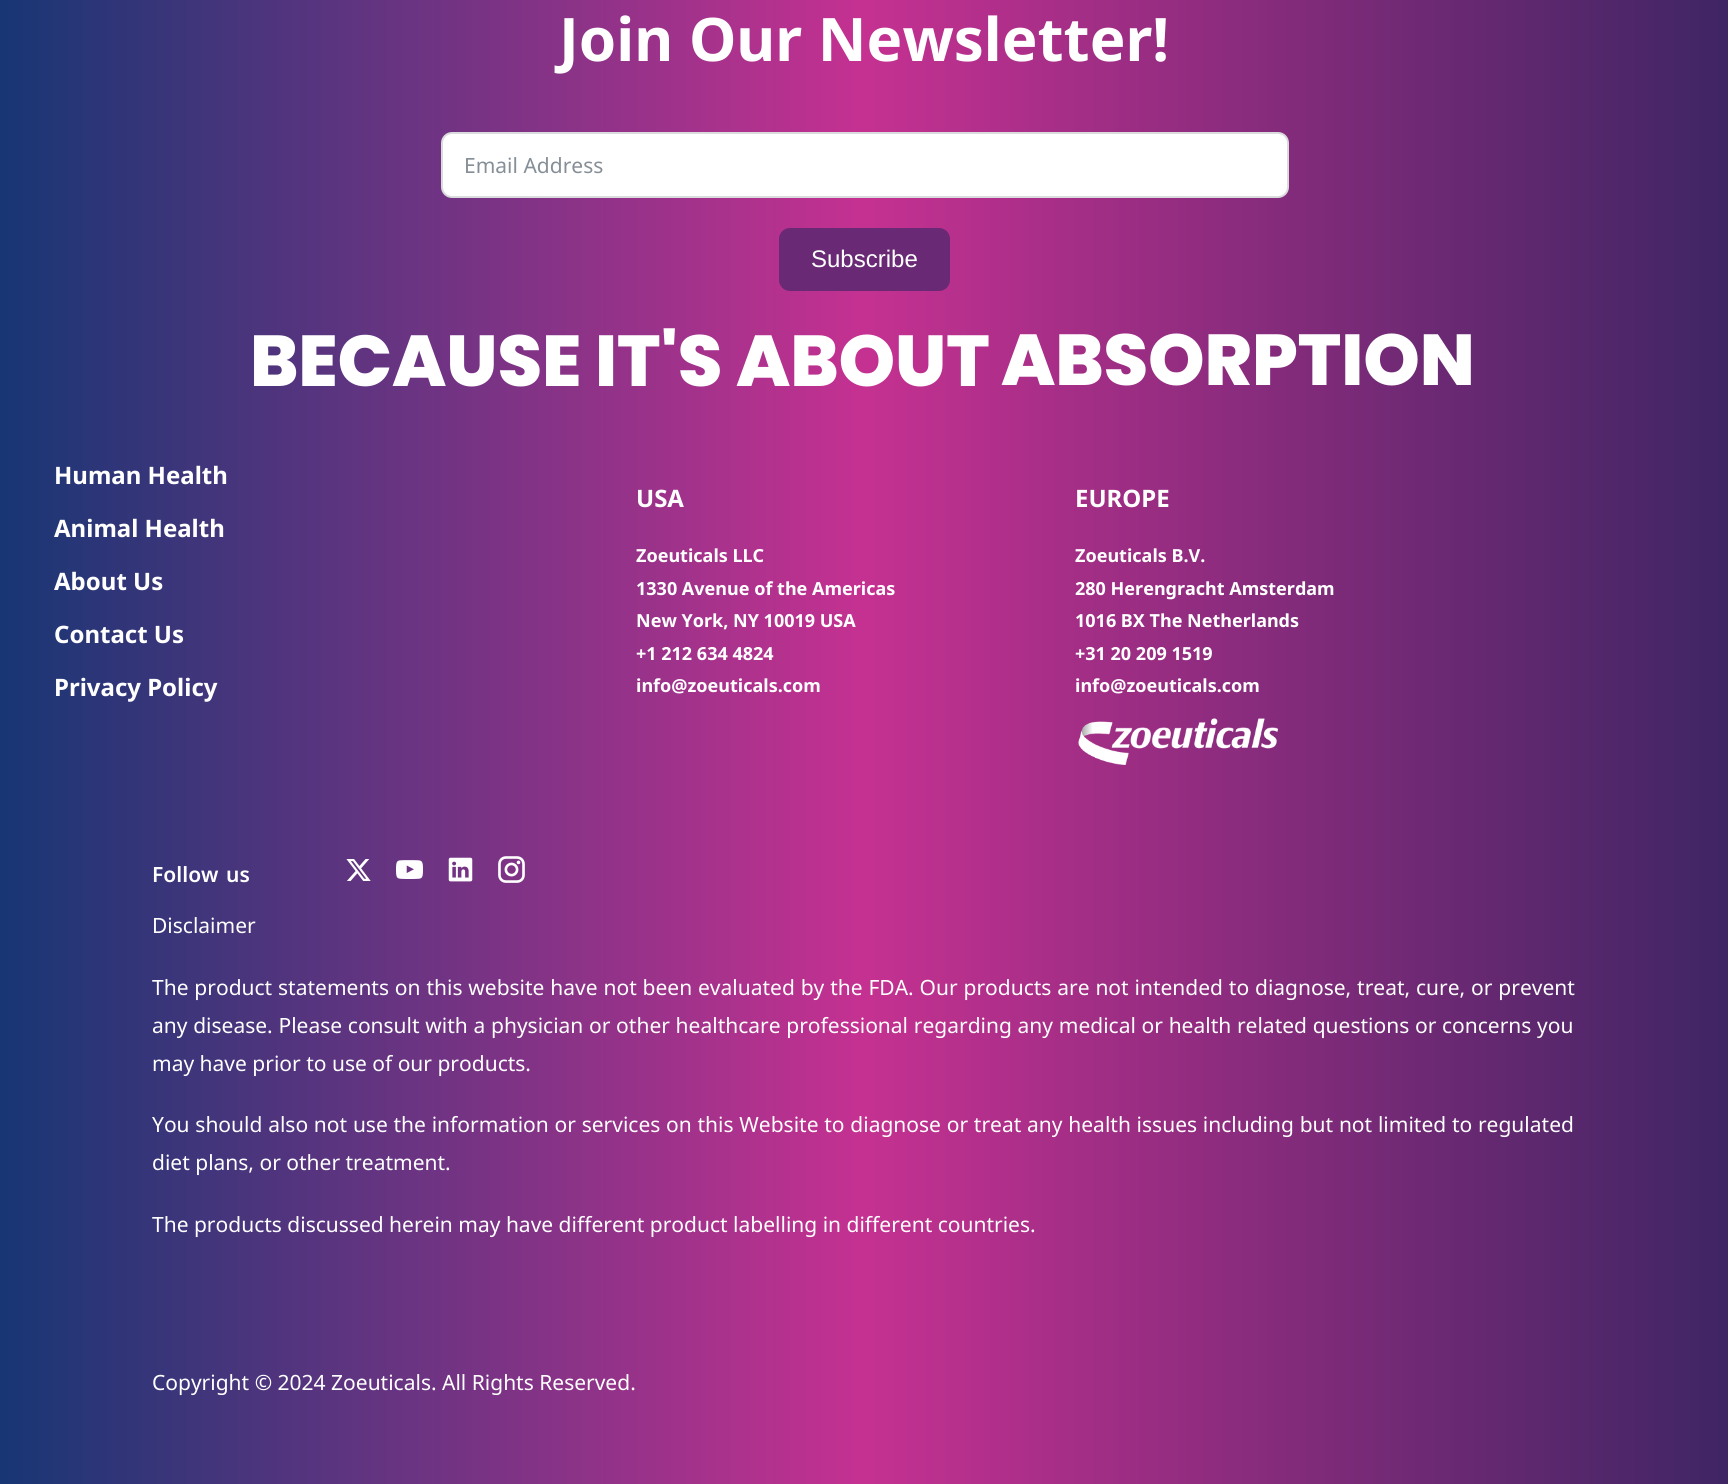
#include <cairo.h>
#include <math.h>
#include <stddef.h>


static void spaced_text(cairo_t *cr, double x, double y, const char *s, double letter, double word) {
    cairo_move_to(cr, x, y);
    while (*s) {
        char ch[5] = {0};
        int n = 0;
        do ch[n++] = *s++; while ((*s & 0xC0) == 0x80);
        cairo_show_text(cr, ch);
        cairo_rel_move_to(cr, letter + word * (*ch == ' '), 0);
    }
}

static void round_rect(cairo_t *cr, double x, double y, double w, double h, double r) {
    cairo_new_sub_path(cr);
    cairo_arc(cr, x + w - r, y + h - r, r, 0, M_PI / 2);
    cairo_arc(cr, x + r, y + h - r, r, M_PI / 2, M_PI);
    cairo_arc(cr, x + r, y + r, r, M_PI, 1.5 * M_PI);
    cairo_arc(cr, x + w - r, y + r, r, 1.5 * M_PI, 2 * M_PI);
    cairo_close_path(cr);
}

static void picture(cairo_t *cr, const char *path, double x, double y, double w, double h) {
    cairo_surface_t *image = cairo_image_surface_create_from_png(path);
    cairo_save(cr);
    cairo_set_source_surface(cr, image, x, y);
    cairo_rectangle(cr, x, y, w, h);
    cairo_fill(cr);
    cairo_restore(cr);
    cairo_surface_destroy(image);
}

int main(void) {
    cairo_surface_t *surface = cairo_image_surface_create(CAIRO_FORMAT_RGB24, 1728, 1484);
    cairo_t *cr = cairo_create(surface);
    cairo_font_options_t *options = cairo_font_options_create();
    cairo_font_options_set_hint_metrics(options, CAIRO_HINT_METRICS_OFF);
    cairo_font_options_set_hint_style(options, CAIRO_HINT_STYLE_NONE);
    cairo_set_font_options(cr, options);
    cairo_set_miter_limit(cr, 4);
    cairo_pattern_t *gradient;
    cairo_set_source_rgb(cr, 1, 1, 1);
    cairo_paint(cr);
    gradient = cairo_pattern_create_linear(1728, 156, 0, 156);
    cairo_pattern_add_color_stop_rgba(gradient, 0, 0.247, 0.145, 0.392, 1);
    cairo_pattern_add_color_stop_rgba(gradient, 0.5, 0.773, 0.192, 0.569, 1);
    cairo_pattern_add_color_stop_rgba(gradient, 1, 0.094, 0.212, 0.455, 1);
    cairo_set_source(cr, gradient);
    cairo_pattern_destroy(gradient);
    cairo_rectangle(cr, 0, 0, 1728, 369);
    cairo_fill(cr);
    cairo_select_font_face(cr, "Noto Sans", CAIRO_FONT_SLANT_NORMAL, CAIRO_FONT_WEIGHT_BOLD);
    cairo_set_font_size(cr, 60);
    cairo_set_source_rgb(cr, 1, 1, 1);
    cairo_move_to(cr, 559, 61);
    cairo_show_text(cr, "Join Our Newsletter!");
    round_rect(cr, 442, 133, 846, 64, 10);
    cairo_fill_preserve(cr);
    cairo_set_source_rgb(cr, 0.855, 0.859, 0.867);
    cairo_stroke(cr);
    cairo_select_font_face(cr, "Noto Sans", CAIRO_FONT_SLANT_NORMAL, CAIRO_FONT_WEIGHT_NORMAL);
    cairo_set_font_size(cr, 21);
    cairo_set_source_rgb(cr, 0.525, 0.557, 0.588);
    cairo_move_to(cr, 464, 173);
    cairo_show_text(cr, "Email Address");
    cairo_set_source_rgb(cr, 0.412, 0.161, 0.459);
    round_rect(cr, 779, 228, 171, 63, 11);
    cairo_fill(cr);
    cairo_select_font_face(cr, "Liberation Sans", CAIRO_FONT_SLANT_NORMAL, CAIRO_FONT_WEIGHT_NORMAL);
    cairo_set_font_size(cr, 24);
    cairo_set_source_rgb(cr, 1, 1, 1);
    cairo_move_to(cr, 811, 267);
    cairo_show_text(cr, "Subscribe");
    gradient = cairo_pattern_create_linear(1728, 635, 0, 635);
    cairo_pattern_add_color_stop_rgba(gradient, 0, 0.247, 0.145, 0.392, 1);
    cairo_pattern_add_color_stop_rgba(gradient, 0.5, 0.773, 0.192, 0.569, 1);
    cairo_pattern_add_color_stop_rgba(gradient, 1, 0.094, 0.212, 0.455, 1);
    cairo_set_source(cr, gradient);
    cairo_pattern_destroy(gradient);
    cairo_rectangle(cr, 0, 369, 1728, 428);
    cairo_fill(cr);
    cairo_select_font_face(cr, "Poppins ExtraBold", CAIRO_FONT_SLANT_NORMAL, CAIRO_FONT_WEIGHT_NORMAL);
    cairo_set_font_size(cr, 72);
    cairo_set_source_rgb(cr, 1, 1, 1);
    spaced_text(cr, 250, 386, "BECAUSE IT'S ABOUT", -0.1, 0);
    spaced_text(cr, 1001, 385, "ABSORPTION", -0.1, 0);
    cairo_select_font_face(cr, "Noto Sans", CAIRO_FONT_SLANT_NORMAL, CAIRO_FONT_WEIGHT_BOLD);
    cairo_set_font_size(cr, 24);
    cairo_move_to(cr, 54, 484);
    cairo_show_text(cr, "Human Health");
    cairo_move_to(cr, 54, 537);
    cairo_show_text(cr, "Animal Health");
    cairo_move_to(cr, 54, 590);
    cairo_show_text(cr, "About Us");
    cairo_move_to(cr, 54, 643);
    cairo_show_text(cr, "Contact Us");
    cairo_move_to(cr, 54, 696);
    cairo_show_text(cr, "Privacy Policy");
    cairo_move_to(cr, 636, 507);
    cairo_show_text(cr, "USA");
    cairo_set_font_size(cr, 18);
    cairo_move_to(cr, 636, 562);
    cairo_show_text(cr, "Zoeuticals LLC");
    cairo_move_to(cr, 636, 595);
    cairo_show_text(cr, "1330 Avenue of the Americas");
    cairo_move_to(cr, 636, 627);
    cairo_show_text(cr, "New York, NY 10019 USA");
    cairo_move_to(cr, 636, 660);
    cairo_show_text(cr, "+1 212 634 4824");
    cairo_move_to(cr, 636, 692);
    cairo_show_text(cr, "info@zoeuticals.com");
    cairo_set_font_size(cr, 24);
    cairo_move_to(cr, 1075, 507);
    cairo_show_text(cr, "EUROPE");
    cairo_set_font_size(cr, 18);
    cairo_move_to(cr, 1075, 562);
    cairo_show_text(cr, "Zoeuticals B.V.");
    cairo_move_to(cr, 1075, 595);
    cairo_show_text(cr, "280 Herengracht Amsterdam");
    cairo_move_to(cr, 1075, 627);
    cairo_show_text(cr, "1016 BX The Netherlands");
    cairo_move_to(cr, 1075, 660);
    cairo_show_text(cr, "+31 20 209 1519");
    cairo_move_to(cr, 1075, 692);
    cairo_show_text(cr, "info@zoeuticals.com");
    picture(cr, "img1.png", 1078, 718, 200, 47);
    gradient = cairo_pattern_create_linear(1728, 1056, 0, 1056);
    cairo_pattern_add_color_stop_rgba(gradient, 0, 0.247, 0.145, 0.392, 1);
    cairo_pattern_add_color_stop_rgba(gradient, 0.5, 0.773, 0.192, 0.569, 1);
    cairo_pattern_add_color_stop_rgba(gradient, 1, 0.094, 0.212, 0.455, 1);
    cairo_set_source(cr, gradient);
    cairo_pattern_destroy(gradient);
    cairo_rectangle(cr, 0, 797, 1728, 519);
    cairo_fill(cr);
    cairo_select_font_face(cr, "Noto Sans SemiBold", CAIRO_FONT_SLANT_NORMAL, CAIRO_FONT_WEIGHT_NORMAL);
    cairo_set_font_size(cr, 21);
    cairo_set_source_rgb(cr, 1, 1, 1);
    spaced_text(cr, 152, 882, "Follow us", 0, 2);
    picture(cr, "img2.png", 346, 859, 25, 22);
    picture(cr, "img3.png", 396, 860, 27, 19);
    picture(cr, "img4.png", 448, 857, 25, 25);
    picture(cr, "img5.png", 498, 856, 27, 27);
    cairo_select_font_face(cr, "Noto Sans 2", CAIRO_FONT_SLANT_NORMAL, CAIRO_FONT_WEIGHT_NORMAL);
    cairo_move_to(cr, 152, 933);
    cairo_show_text(cr, "Disclaimer");
    spaced_text(cr, 152, 995, "The product statements on this website have not been evaluated by the FDA. Our products are not intended to diagnose, treat, cure, or prevent", 0, 0.4);
    spaced_text(cr, 152, 1033, "any disease. Please consult with a physician or other healthcare professional regarding any medical or health related questions or concerns you", 0, 0.25);
    cairo_move_to(cr, 152, 1071);
    cairo_show_text(cr, "may have prior to use of our products.");
    spaced_text(cr, 152, 1132, "You should also not use the information or services on this Website to diagnose or treat any health issues including but not limited to regulated", 0, 0.3);
    cairo_move_to(cr, 152, 1170);
    cairo_show_text(cr, "diet plans, or other treatment.");
    cairo_move_to(cr, 152, 1232);
    cairo_show_text(cr, "The products discussed herein may have different product labelling in different countries.");
    gradient = cairo_pattern_create_linear(1728, 1400, 0, 1400);
    cairo_pattern_add_color_stop_rgba(gradient, 0, 0.247, 0.145, 0.392, 1);
    cairo_pattern_add_color_stop_rgba(gradient, 0.5, 0.773, 0.192, 0.569, 1);
    cairo_pattern_add_color_stop_rgba(gradient, 1, 0.094, 0.212, 0.455, 1);
    cairo_set_source(cr, gradient);
    cairo_pattern_destroy(gradient);
    cairo_rectangle(cr, 0, 1316, 1728, 168);
    cairo_fill(cr);
    cairo_set_source_rgb(cr, 1, 1, 1);
    cairo_move_to(cr, 152, 1390);
    cairo_show_text(cr, "Copyright © 2024 Zoeuticals. All Rights Reserved.");
    cairo_surface_write_to_png(surface, "page.png");
    cairo_font_options_destroy(options);
    cairo_destroy(cr);
    cairo_surface_destroy(surface);
    return 0;
}
